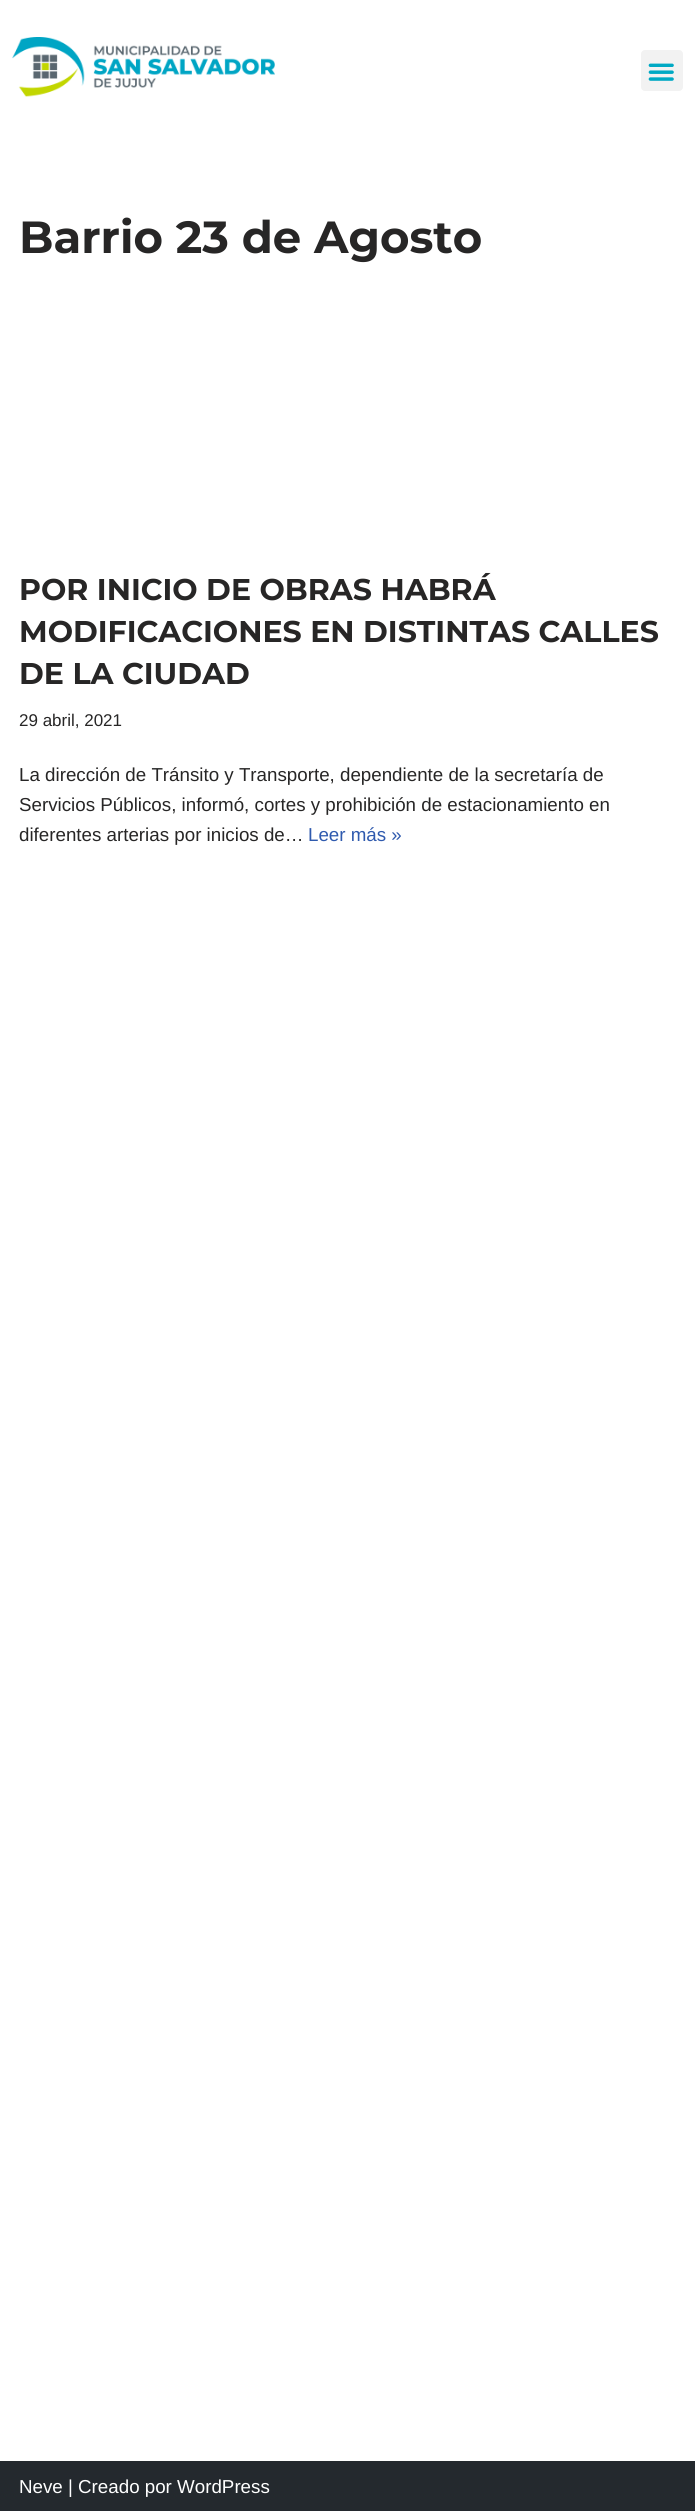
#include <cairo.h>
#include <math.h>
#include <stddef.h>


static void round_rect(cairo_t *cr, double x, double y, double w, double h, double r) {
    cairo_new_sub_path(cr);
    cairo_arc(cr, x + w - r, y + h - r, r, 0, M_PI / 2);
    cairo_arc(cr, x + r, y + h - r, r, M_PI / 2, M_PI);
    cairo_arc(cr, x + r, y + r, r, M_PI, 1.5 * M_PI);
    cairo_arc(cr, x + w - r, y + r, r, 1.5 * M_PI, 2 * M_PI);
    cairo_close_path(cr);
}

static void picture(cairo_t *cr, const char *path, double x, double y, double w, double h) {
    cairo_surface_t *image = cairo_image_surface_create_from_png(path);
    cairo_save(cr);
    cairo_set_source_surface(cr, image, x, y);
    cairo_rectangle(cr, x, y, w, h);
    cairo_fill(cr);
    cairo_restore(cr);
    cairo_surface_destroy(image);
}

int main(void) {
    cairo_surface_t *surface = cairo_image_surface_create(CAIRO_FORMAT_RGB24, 695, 2511);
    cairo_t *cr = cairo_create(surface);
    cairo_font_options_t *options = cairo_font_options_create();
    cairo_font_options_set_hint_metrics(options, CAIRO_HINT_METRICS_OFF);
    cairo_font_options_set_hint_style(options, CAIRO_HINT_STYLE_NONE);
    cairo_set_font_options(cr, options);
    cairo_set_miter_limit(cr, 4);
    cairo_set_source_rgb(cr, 1, 1, 1);
    cairo_paint(cr);
    picture(cr, "img1.png", 12, 37, 263, 60);
    cairo_set_source_rgb(cr, 0.949, 0.949, 0.949);
    round_rect(cr, 641, 50, 42, 41, 4);
    cairo_fill(cr);
    picture(cr, "img2.png", 648, 63, 26, 18);
    cairo_select_font_face(cr, "Montserrat", CAIRO_FONT_SLANT_NORMAL, CAIRO_FONT_WEIGHT_BOLD);
    cairo_set_font_size(cr, 45);
    cairo_set_source_rgb(cr, 0.153, 0.149, 0.149);
    cairo_move_to(cr, 19, 253);
    cairo_show_text(cr, "Barrio 23 de Agosto");
    cairo_set_font_size(cr, 30);
    cairo_move_to(cr, 19, 600);
    cairo_show_text(cr, "POR INICIO DE OBRAS HABRÁ");
    cairo_move_to(cr, 19, 642);
    cairo_show_text(cr, "MODIFICACIONES EN DISTINTAS CALLES");
    cairo_move_to(cr, 19, 684);
    cairo_show_text(cr, "DE LA CIUDAD");
    cairo_select_font_face(cr, "Liberation Sans", CAIRO_FONT_SLANT_NORMAL, CAIRO_FONT_WEIGHT_NORMAL);
    cairo_set_font_size(cr, 17);
    cairo_move_to(cr, 19, 726);
    cairo_show_text(cr, "29 abril, 2021");
    cairo_set_font_size(cr, 18.75);
    cairo_move_to(cr, 19, 781);
    cairo_show_text(cr, "La dirección de Tránsito y Transporte, dependiente de la secretaría de");
    cairo_move_to(cr, 19, 811);
    cairo_show_text(cr, "Servicios Públicos, informó, cortes y prohibición de estacionamiento en");
    cairo_move_to(cr, 19, 841);
    cairo_show_text(cr, "diferentes arterias por inicios de…");
    cairo_set_source_rgb(cr, 0.184, 0.353, 0.682);
    cairo_move_to(cr, 308, 841);
    cairo_show_text(cr, "Leer más »");
    cairo_set_source_rgb(cr, 0.141, 0.161, 0.18);
    cairo_rectangle(cr, 0, 2461, 695, 50);
    cairo_fill(cr);
    cairo_set_source_rgb(cr, 1, 1, 1);
    cairo_move_to(cr, 19, 2493);
    cairo_show_text(cr, "Neve | Creado por WordPress");
    cairo_surface_write_to_png(surface, "page.png");
    cairo_font_options_destroy(options);
    cairo_destroy(cr);
    cairo_surface_destroy(surface);
    return 0;
}
